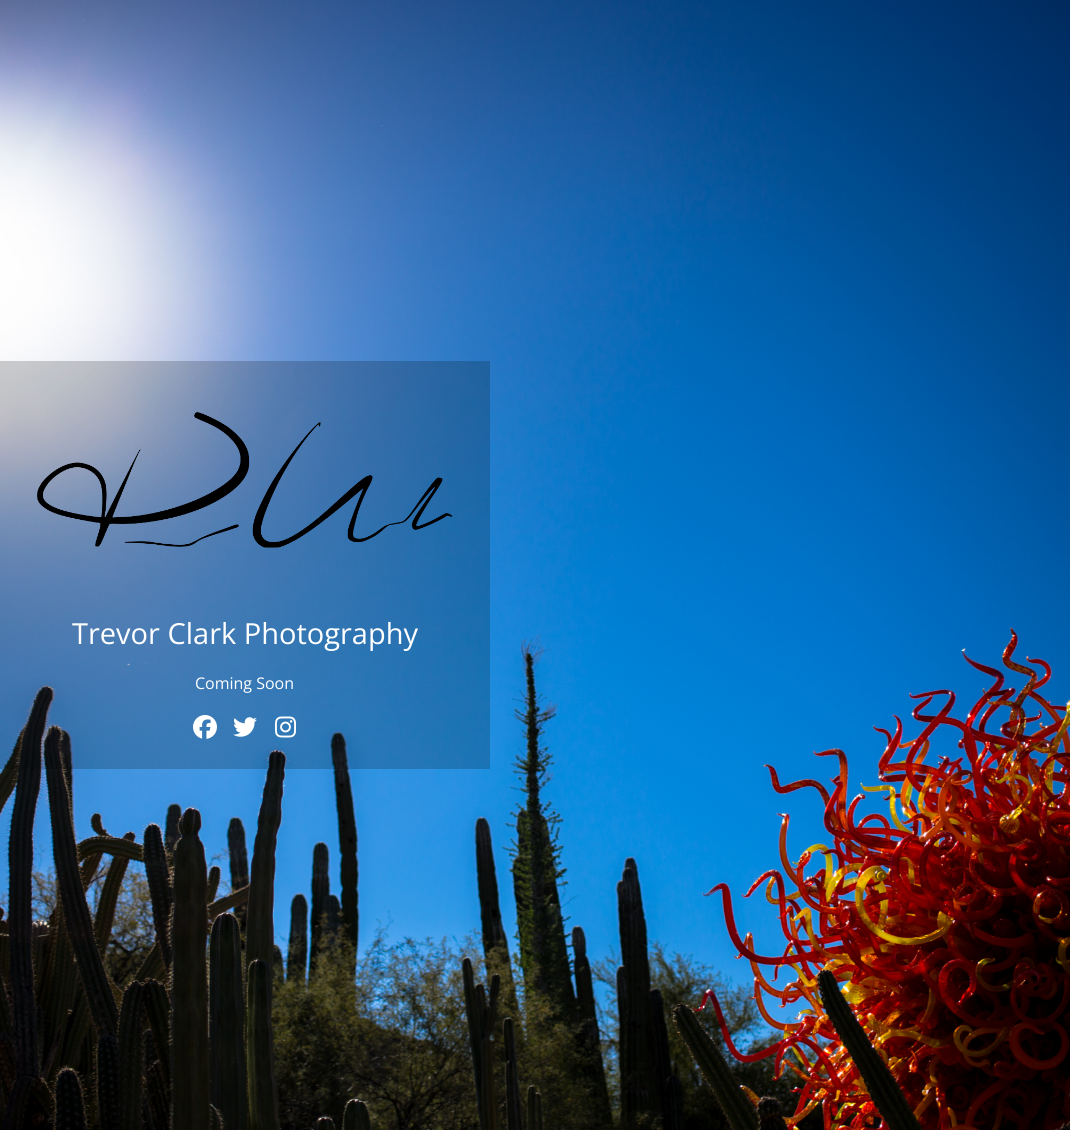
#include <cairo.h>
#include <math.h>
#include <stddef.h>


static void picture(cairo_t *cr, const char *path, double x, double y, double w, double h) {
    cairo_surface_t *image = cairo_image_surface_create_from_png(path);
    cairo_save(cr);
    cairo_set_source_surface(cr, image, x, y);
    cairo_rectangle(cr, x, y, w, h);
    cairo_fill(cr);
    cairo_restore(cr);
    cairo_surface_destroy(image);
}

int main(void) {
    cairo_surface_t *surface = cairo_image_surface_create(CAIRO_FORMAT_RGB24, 1070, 1130);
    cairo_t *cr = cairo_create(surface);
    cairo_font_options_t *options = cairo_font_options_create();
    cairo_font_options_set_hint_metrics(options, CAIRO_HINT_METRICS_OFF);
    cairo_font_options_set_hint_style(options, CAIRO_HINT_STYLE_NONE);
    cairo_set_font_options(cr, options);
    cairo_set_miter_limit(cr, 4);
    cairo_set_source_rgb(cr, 1, 1, 1);
    cairo_paint(cr);
    picture(cr, "img1.png", 0, 0, 1070, 1130);
    cairo_set_source_rgba(cr, 0, 0, 0, 0.19);
    cairo_rectangle(cr, 0, 361, 490, 408);
    cairo_fill(cr);
    picture(cr, "img2.png", 37, 412, 416, 136);
    cairo_select_font_face(cr, "Open Sans", CAIRO_FONT_SLANT_NORMAL, CAIRO_FONT_WEIGHT_NORMAL);
    cairo_set_font_size(cr, 29);
    cairo_set_source_rgb(cr, 1, 1, 1);
    cairo_move_to(cr, 72, 644);
    cairo_show_text(cr, "Trevor Clark Photography");
    cairo_set_font_size(cr, 16);
    cairo_move_to(cr, 195, 689);
    cairo_show_text(cr, "Coming Soon");
    picture(cr, "img3.png", 193, 715, 24, 24);
    picture(cr, "img4.png", 233, 717, 24, 20);
    picture(cr, "img5.png", 275, 716, 21, 22);
    cairo_surface_write_to_png(surface, "page.png");
    cairo_font_options_destroy(options);
    cairo_destroy(cr);
    cairo_surface_destroy(surface);
    return 0;
}
